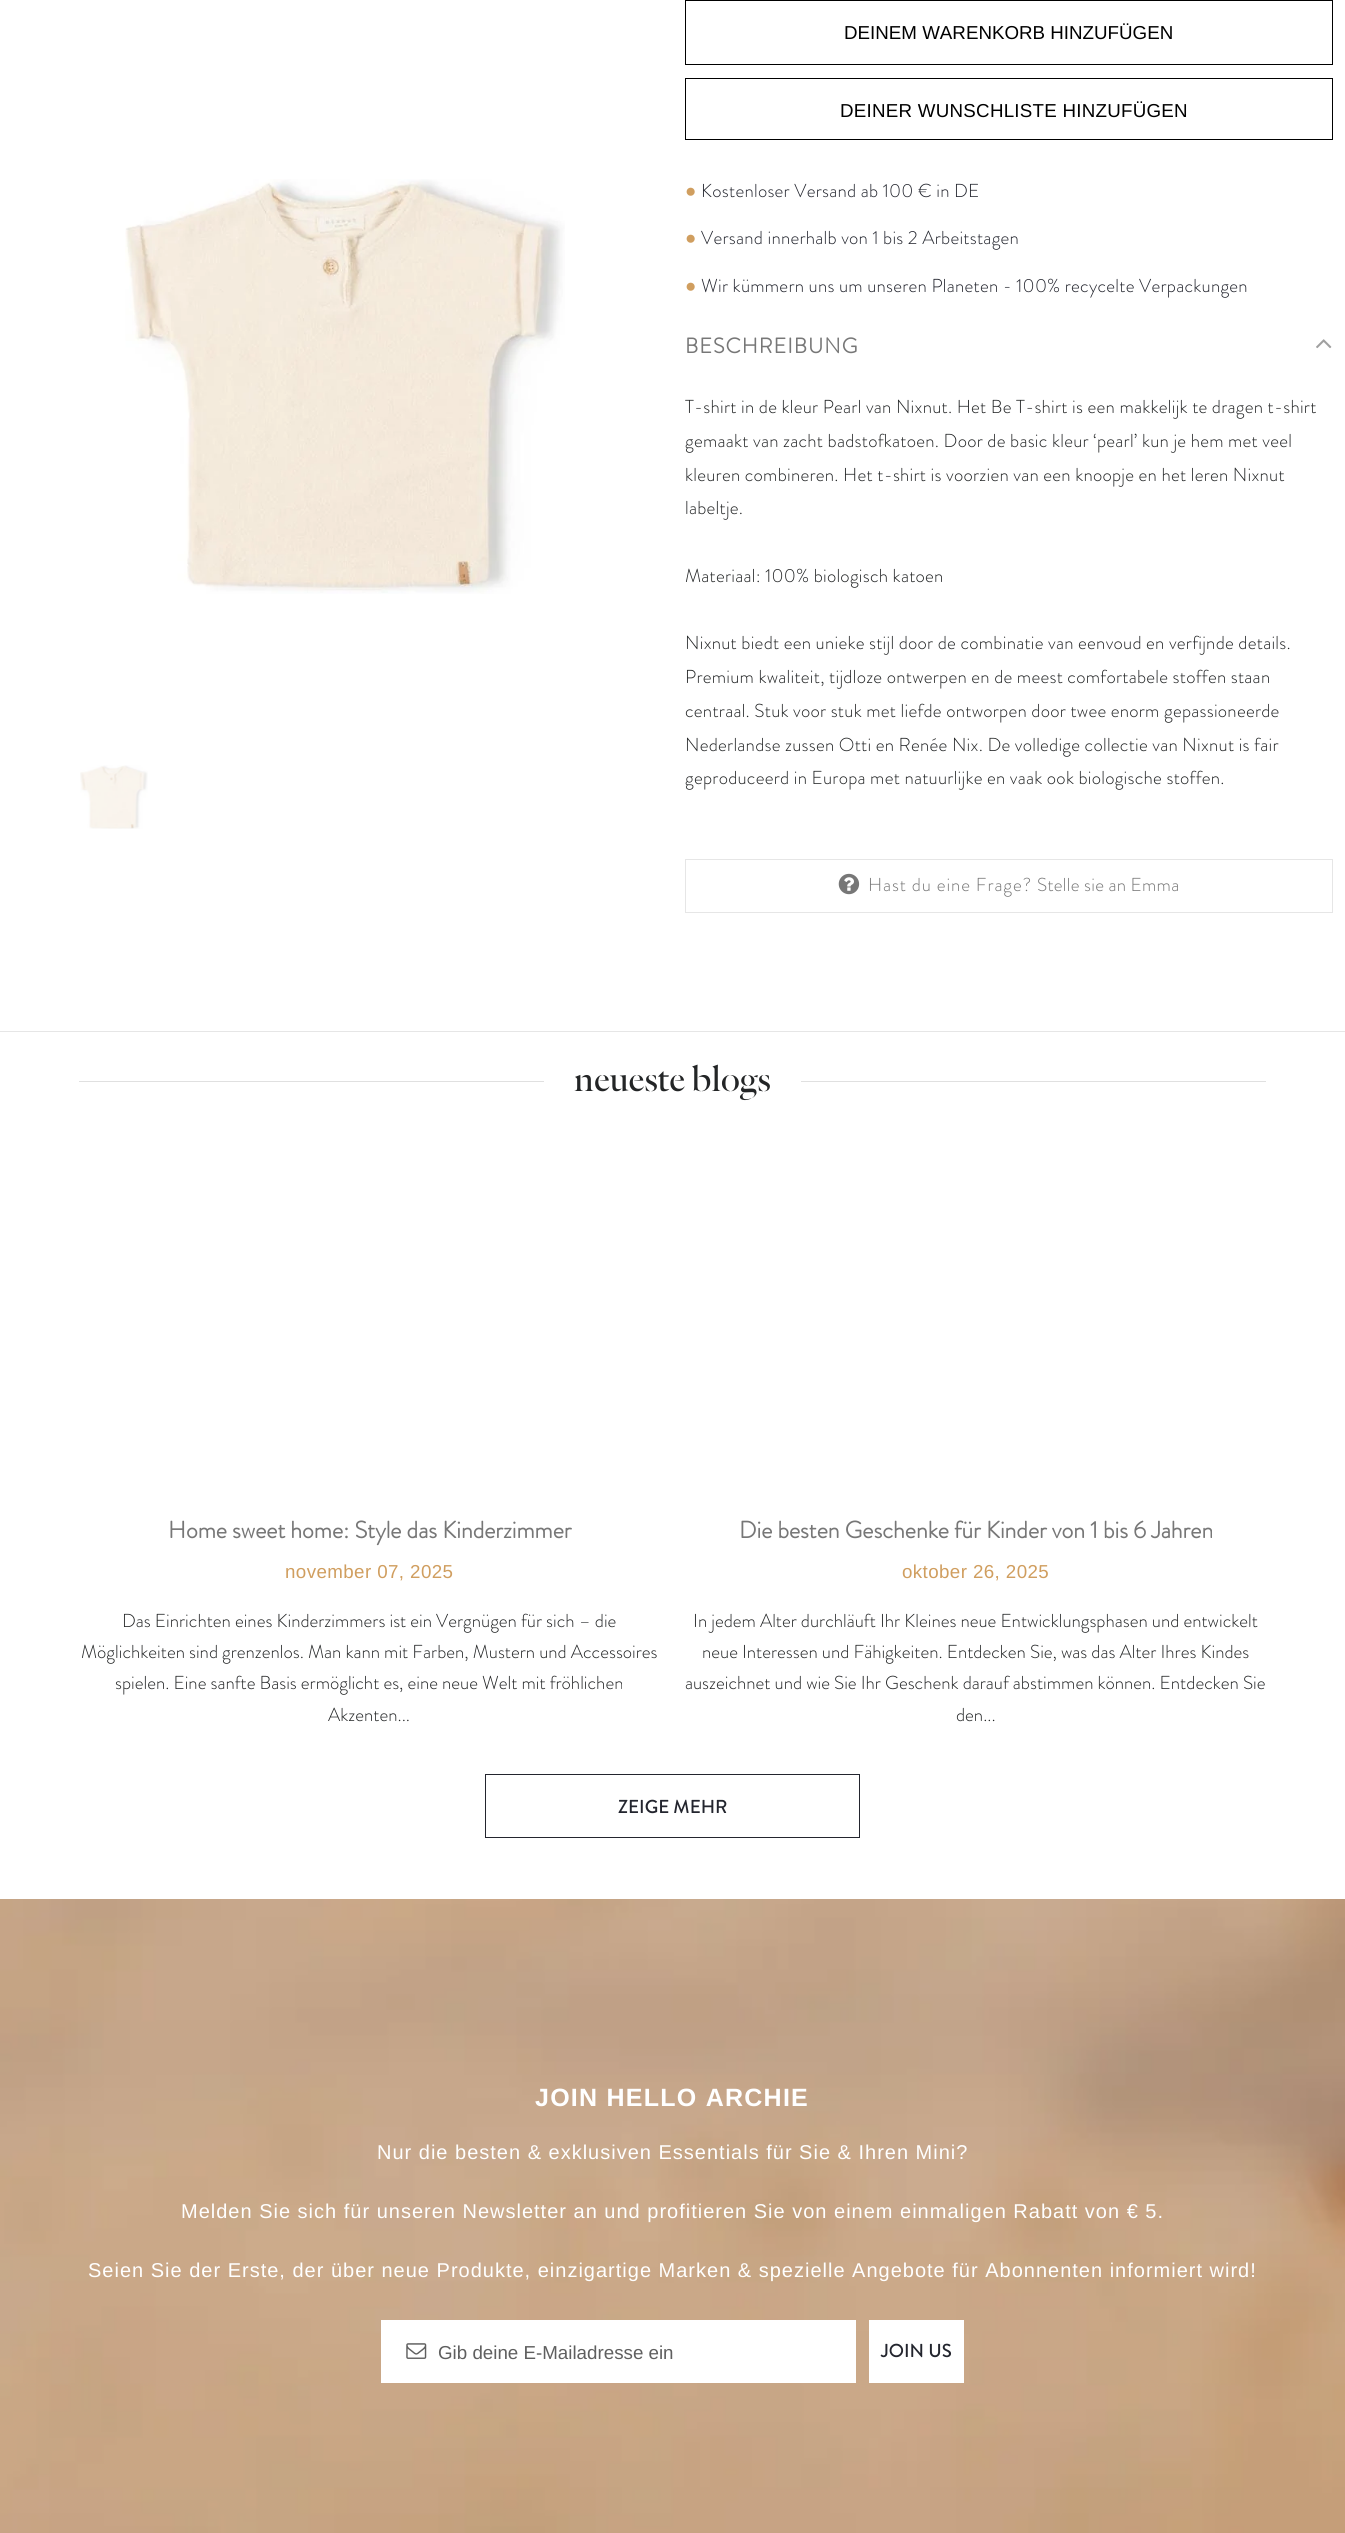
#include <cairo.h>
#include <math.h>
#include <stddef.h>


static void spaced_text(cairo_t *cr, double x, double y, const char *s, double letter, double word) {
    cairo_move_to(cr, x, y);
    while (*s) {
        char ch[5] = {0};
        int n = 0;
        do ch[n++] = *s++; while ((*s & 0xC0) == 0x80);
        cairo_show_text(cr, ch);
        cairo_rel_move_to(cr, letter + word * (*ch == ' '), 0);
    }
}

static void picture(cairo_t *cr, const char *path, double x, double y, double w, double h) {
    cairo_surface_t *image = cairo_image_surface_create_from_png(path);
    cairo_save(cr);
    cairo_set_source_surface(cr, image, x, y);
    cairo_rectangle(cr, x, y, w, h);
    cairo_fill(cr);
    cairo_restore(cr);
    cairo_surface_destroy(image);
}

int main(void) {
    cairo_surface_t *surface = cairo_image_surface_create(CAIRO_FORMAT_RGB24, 1345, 2533);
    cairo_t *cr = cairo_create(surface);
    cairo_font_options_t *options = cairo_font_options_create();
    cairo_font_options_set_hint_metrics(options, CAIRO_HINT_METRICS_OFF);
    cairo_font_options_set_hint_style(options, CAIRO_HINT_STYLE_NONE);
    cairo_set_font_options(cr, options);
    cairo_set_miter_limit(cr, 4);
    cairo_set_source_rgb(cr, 1, 1, 1);
    cairo_paint(cr);
    picture(cr, "img1.png", 125, 179, 440, 415);
    picture(cr, "img2.png", 80, 765, 68, 64);
    cairo_rectangle(cr, 685.5, 0.5, 647, 64);
    cairo_set_source_rgb(cr, 0, 0, 0);
    cairo_set_line_width(cr, 1);
    cairo_stroke(cr);
    cairo_select_font_face(cr, "Liberation Sans", CAIRO_FONT_SLANT_NORMAL, CAIRO_FONT_WEIGHT_NORMAL);
    cairo_set_font_size(cr, 18.75);
    cairo_move_to(cr, 844, 39);
    cairo_show_text(cr, "DEINEM WARENKORB HINZUFÜGEN");
    cairo_rectangle(cr, 685.5, 78.5, 647, 61);
    cairo_stroke(cr);
    spaced_text(cr, 840, 117, "DEINER WUNSCHLISTE HINZUFÜGEN", 0.25, 0);
    cairo_select_font_face(cr, "Liberation Serif", CAIRO_FONT_SLANT_NORMAL, CAIRO_FONT_WEIGHT_NORMAL);
    cairo_set_source_rgb(cr, 0.816, 0.62, 0.373);
    spaced_text(cr, 685, 197, "●", 0.25, 0);
    cairo_select_font_face(cr, "Brandon Grotesque Light", CAIRO_FONT_SLANT_NORMAL, CAIRO_FONT_WEIGHT_NORMAL);
    cairo_set_source_rgb(cr, 0.137, 0.145, 0.18);
    spaced_text(cr, 701, 197, "Kostenloser Versand ab 100 € in DE", 0.25, 0);
    cairo_select_font_face(cr, "Liberation Serif", CAIRO_FONT_SLANT_NORMAL, CAIRO_FONT_WEIGHT_NORMAL);
    cairo_set_source_rgb(cr, 0.816, 0.62, 0.373);
    spaced_text(cr, 685, 244, "●", 0.25, 0);
    cairo_select_font_face(cr, "Brandon Grotesque Light", CAIRO_FONT_SLANT_NORMAL, CAIRO_FONT_WEIGHT_NORMAL);
    cairo_set_source_rgb(cr, 0.137, 0.145, 0.18);
    spaced_text(cr, 701, 244, "Versand innerhalb von 1 bis 2 Arbeitstagen", 0.25, 0);
    cairo_select_font_face(cr, "Liberation Serif", CAIRO_FONT_SLANT_NORMAL, CAIRO_FONT_WEIGHT_NORMAL);
    cairo_set_source_rgb(cr, 0.816, 0.62, 0.373);
    spaced_text(cr, 685, 292, "●", 0.25, 0);
    cairo_select_font_face(cr, "Brandon Grotesque Light", CAIRO_FONT_SLANT_NORMAL, CAIRO_FONT_WEIGHT_NORMAL);
    cairo_set_source_rgb(cr, 0.137, 0.145, 0.18);
    spaced_text(cr, 701, 292, "Wir kümmern uns um unseren Planeten - 100% recycelte Verpackungen", 0.25, 0);
    cairo_select_font_face(cr, "Brandon Grotesque", CAIRO_FONT_SLANT_NORMAL, CAIRO_FONT_WEIGHT_BOLD);
    cairo_set_font_size(cr, 21.25);
    cairo_set_source_rgb(cr, 0.467, 0.467, 0.467);
    spaced_text(cr, 685, 353, "BESCHREIBUNG", 1, 0);
    picture(cr, "img3.png", 1316, 339, 16, 10);
    cairo_select_font_face(cr, "Brandon Grotesque Light", CAIRO_FONT_SLANT_NORMAL, CAIRO_FONT_WEIGHT_NORMAL);
    cairo_set_font_size(cr, 18.75);
    cairo_set_source_rgb(cr, 0.137, 0.145, 0.149);
    spaced_text(cr, 685, 413, "T-shirt in de kleur Pearl van Nixnut. Het Be T-shirt is een makkelijk te dragen t-shirt", 0.25, 0);
    spaced_text(cr, 685, 447, "gemaakt van zacht badstofkatoen. Door de basic kleur ‘pearl’ kun je hem met veel", 0.25, 0);
    spaced_text(cr, 685, 481, "kleuren combineren. Het t-shirt is voorzien van een knoopje en het leren Nixnut", 0.25, 0);
    spaced_text(cr, 685, 514, "labeltje.", 0.25, 0);
    spaced_text(cr, 685, 582, "Materiaal: 100% biologisch katoen", 0.25, 0);
    spaced_text(cr, 685, 649, "Nixnut biedt een unieke stijl door de combinatie van eenvoud en verfijnde details.", 0.25, 0);
    spaced_text(cr, 685, 683, "Premium kwaliteit, tijdloze ontwerpen en de meest comfortabele stoffen staan", 0.25, 0);
    spaced_text(cr, 685, 717, "centraal. Stuk voor stuk met liefde ontworpen door twee enorm gepassioneerde", 0.25, 0);
    spaced_text(cr, 685, 751, "Nederlandse zussen Otti en Renée Nix. De volledige collectie van Nixnut is fair", 0.25, 0);
    spaced_text(cr, 685, 784, "geproduceerd in Europa met natuurlijke en vaak ook biologische stoffen.", 0.25, 0);
    cairo_rectangle(cr, 685.5, 859.5, 647, 53);
    cairo_set_source_rgb(cr, 0.902, 0.902, 0.902);
    cairo_stroke(cr);
    picture(cr, "img4.png", 838, 873, 22, 22);
    cairo_set_source_rgb(cr, 0.467, 0.467, 0.467);
    spaced_text(cr, 868, 891, "Hast du eine Frage?", 0.9, 0);
    spaced_text(cr, 1037, 891, "Stelle sie an Emma", 0.25, 0);
    cairo_set_source_rgb(cr, 0.902, 0.902, 0.902);
    cairo_rectangle(cr, 0, 1031, 1345, 1);
    cairo_fill(cr);
    cairo_set_source_rgb(cr, 0.878, 0.878, 0.878);
    cairo_rectangle(cr, 79, 1081, 1187, 1);
    cairo_fill(cr);
    cairo_set_source_rgb(cr, 1, 1, 1);
    cairo_rectangle(cr, 544, 1081, 257, 1);
    cairo_fill(cr);
    cairo_select_font_face(cr, "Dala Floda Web", CAIRO_FONT_SLANT_NORMAL, CAIRO_FONT_WEIGHT_NORMAL);
    cairo_set_font_size(cr, 37.5);
    cairo_set_source_rgb(cr, 0.137, 0.145, 0.149);
    cairo_move_to(cr, 574, 1091);
    cairo_show_text(cr, "neueste blogs");
    cairo_select_font_face(cr, "Brandon Grotesque", CAIRO_FONT_SLANT_NORMAL, CAIRO_FONT_WEIGHT_BOLD);
    cairo_set_font_size(cr, 23.75);
    cairo_set_source_rgb(cr, 0.467, 0.467, 0.467);
    cairo_move_to(cr, 168, 1538);
    cairo_show_text(cr, "Home sweet home: Style das Kinderzimmer");
    cairo_select_font_face(cr, "Liberation Sans", CAIRO_FONT_SLANT_NORMAL, CAIRO_FONT_WEIGHT_NORMAL);
    cairo_set_font_size(cr, 18.75);
    cairo_set_source_rgb(cr, 0.816, 0.62, 0.373);
    spaced_text(cr, 285, 1578, "november 07, 2025", 0.4, 0);
    cairo_select_font_face(cr, "Brandon Grotesque Light", CAIRO_FONT_SLANT_NORMAL, CAIRO_FONT_WEIGHT_NORMAL);
    cairo_set_source_rgb(cr, 0.137, 0.145, 0.149);
    cairo_move_to(cr, 122, 1627);
    cairo_show_text(cr, "Das Einrichten eines Kinderzimmers ist ein Vergnügen für sich – die");
    cairo_move_to(cr, 81, 1658);
    cairo_show_text(cr, "Möglichkeiten sind grenzenlos. Man kann mit Farben, Mustern und Accessoires");
    cairo_move_to(cr, 115, 1689);
    cairo_show_text(cr, "spielen. Eine sanfte Basis ermöglicht es, eine neue Welt mit fröhlichen");
    cairo_move_to(cr, 328, 1721);
    cairo_show_text(cr, "Akzenten...");
    cairo_select_font_face(cr, "Brandon Grotesque", CAIRO_FONT_SLANT_NORMAL, CAIRO_FONT_WEIGHT_BOLD);
    cairo_set_font_size(cr, 23.75);
    cairo_set_source_rgb(cr, 0.467, 0.467, 0.467);
    cairo_move_to(cr, 739, 1538);
    cairo_show_text(cr, "Die besten Geschenke für Kinder von 1 bis 6 Jahren");
    cairo_select_font_face(cr, "Liberation Sans", CAIRO_FONT_SLANT_NORMAL, CAIRO_FONT_WEIGHT_NORMAL);
    cairo_set_font_size(cr, 18.75);
    cairo_set_source_rgb(cr, 0.816, 0.62, 0.373);
    spaced_text(cr, 902, 1578, "oktober 26, 2025", 0.4, 0);
    cairo_select_font_face(cr, "Brandon Grotesque Light", CAIRO_FONT_SLANT_NORMAL, CAIRO_FONT_WEIGHT_NORMAL);
    cairo_set_source_rgb(cr, 0.137, 0.145, 0.149);
    cairo_move_to(cr, 693, 1627);
    cairo_show_text(cr, "In jedem Alter durchläuft Ihr Kleines neue Entwicklungsphasen und entwickelt");
    cairo_move_to(cr, 702, 1658);
    cairo_show_text(cr, "neue Interessen und Fähigkeiten. Entdecken Sie, was das Alter Ihres Kindes");
    cairo_move_to(cr, 685, 1689);
    cairo_show_text(cr, "auszeichnet und wie Sie Ihr Geschenk darauf abstimmen können. Entdecken Sie");
    cairo_move_to(cr, 956, 1721);
    cairo_show_text(cr, "den...");
    cairo_rectangle(cr, 485.5, 1774.5, 374, 63);
    cairo_set_source_rgb(cr, 0.137, 0.145, 0.18);
    cairo_stroke(cr);
    cairo_select_font_face(cr, "Brandon Grotesque Medium", CAIRO_FONT_SLANT_NORMAL, CAIRO_FONT_WEIGHT_NORMAL);
    cairo_move_to(cr, 618, 1813);
    cairo_show_text(cr, "ZEIGE MEHR");
    picture(cr, "img5.png", 0, 1899, 1345, 634);
    cairo_select_font_face(cr, "Liberation Sans", CAIRO_FONT_SLANT_NORMAL, CAIRO_FONT_WEIGHT_BOLD);
    cairo_set_font_size(cr, 25);
    cairo_set_source_rgb(cr, 1, 1, 1);
    spaced_text(cr, 535, 2106, "JOIN HELLO ARCHIE", 1.25, 0);
    cairo_select_font_face(cr, "Liberation Sans", CAIRO_FONT_SLANT_NORMAL, CAIRO_FONT_WEIGHT_NORMAL);
    cairo_set_font_size(cr, 20);
    spaced_text(cr, 377, 2159, "Nur die besten & exklusiven Essentials für Sie & Ihren Mini?", 1, 0);
    spaced_text(cr, 181, 2218, "Melden Sie sich für unseren Newsletter an und profitieren Sie von einem einmaligen Rabatt von € 5.", 1, 0);
    spaced_text(cr, 88, 2277, "Seien Sie der Erste, der über neue Produkte, einzigartige Marken & spezielle Angebote für Abonnenten informiert wird!", 1, 0);
    cairo_rectangle(cr, 381, 2320, 475, 63);
    cairo_fill(cr);
    picture(cr, "img6.png", 406, 2343, 21, 16);
    cairo_set_font_size(cr, 18.75);
    cairo_set_source_rgb(cr, 0.373, 0.373, 0.373);
    cairo_move_to(cr, 438, 2359);
    cairo_show_text(cr, "Gib deine E-Mailadresse ein");
    cairo_set_source_rgb(cr, 1, 1, 1);
    cairo_rectangle(cr, 869, 2320, 95, 63);
    cairo_fill(cr);
    cairo_select_font_face(cr, "Brandon Grotesque Medium", CAIRO_FONT_SLANT_NORMAL, CAIRO_FONT_WEIGHT_NORMAL);
    cairo_set_source_rgb(cr, 0.137, 0.145, 0.18);
    cairo_move_to(cr, 881, 2357);
    cairo_show_text(cr, "JOIN US");
    cairo_surface_write_to_png(surface, "page.png");
    cairo_font_options_destroy(options);
    cairo_destroy(cr);
    cairo_surface_destroy(surface);
    return 0;
}
